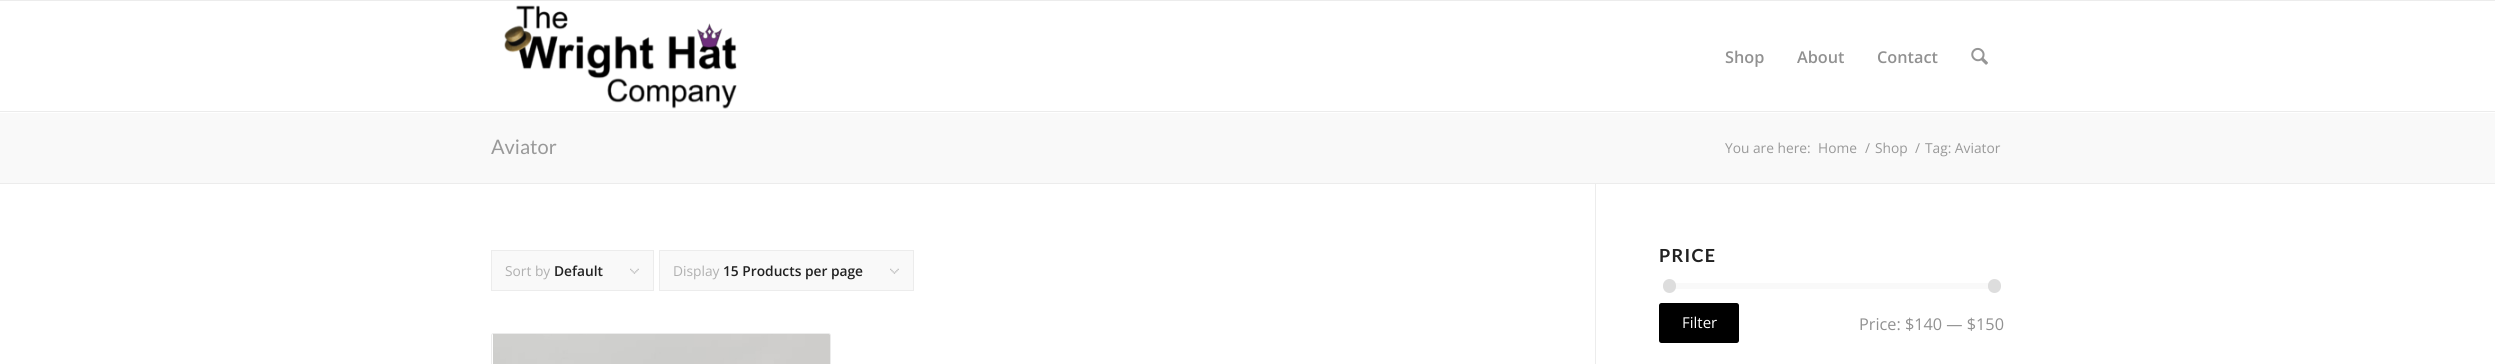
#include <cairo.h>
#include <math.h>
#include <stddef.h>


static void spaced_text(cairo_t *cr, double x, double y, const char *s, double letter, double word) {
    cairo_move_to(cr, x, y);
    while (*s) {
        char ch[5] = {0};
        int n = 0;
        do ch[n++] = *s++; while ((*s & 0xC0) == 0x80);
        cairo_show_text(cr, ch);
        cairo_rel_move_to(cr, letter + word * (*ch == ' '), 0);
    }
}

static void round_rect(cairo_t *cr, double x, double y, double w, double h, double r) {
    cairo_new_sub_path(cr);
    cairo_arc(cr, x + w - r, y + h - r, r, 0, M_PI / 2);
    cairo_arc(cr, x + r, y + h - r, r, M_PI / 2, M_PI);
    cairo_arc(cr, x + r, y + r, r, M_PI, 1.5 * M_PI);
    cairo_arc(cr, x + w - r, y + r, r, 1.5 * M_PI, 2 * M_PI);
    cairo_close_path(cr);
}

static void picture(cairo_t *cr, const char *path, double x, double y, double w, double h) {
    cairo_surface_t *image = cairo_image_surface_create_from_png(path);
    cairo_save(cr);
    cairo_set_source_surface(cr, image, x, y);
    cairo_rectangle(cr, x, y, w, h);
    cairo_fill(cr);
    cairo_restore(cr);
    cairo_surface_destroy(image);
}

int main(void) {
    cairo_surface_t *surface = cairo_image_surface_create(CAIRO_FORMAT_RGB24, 2495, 364);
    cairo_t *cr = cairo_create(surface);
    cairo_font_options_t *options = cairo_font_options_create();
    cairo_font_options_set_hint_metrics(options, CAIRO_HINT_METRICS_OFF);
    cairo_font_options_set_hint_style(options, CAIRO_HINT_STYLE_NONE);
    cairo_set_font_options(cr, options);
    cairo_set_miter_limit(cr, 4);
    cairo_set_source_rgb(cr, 1, 1, 1);
    cairo_paint(cr);
    cairo_set_source_rgb(cr, 0.922, 0.922, 0.922);
    cairo_rectangle(cr, 0, 0, 2495, 1);
    cairo_fill(cr);
    cairo_rectangle(cr, 0, 111, 2495, 1);
    cairo_fill(cr);
    picture(cr, "img1.png", 504, 5, 233, 104);
    cairo_select_font_face(cr, "Open Sans SemiBold", CAIRO_FONT_SLANT_NORMAL, CAIRO_FONT_WEIGHT_NORMAL);
    cairo_set_font_size(cr, 16.25);
    cairo_set_source_rgb(cr, 0.569, 0.569, 0.569);
    cairo_move_to(cr, 1725, 63);
    cairo_show_text(cr, "Shop");
    cairo_move_to(cr, 1797, 63);
    cairo_show_text(cr, "About");
    cairo_move_to(cr, 1877, 63);
    cairo_show_text(cr, "Contact");
    picture(cr, "img2.png", 1971, 47, 17, 18);
    cairo_set_source_rgb(cr, 0.973, 0.973, 0.973);
    cairo_rectangle(cr, 0, 113, 2495, 70);
    cairo_fill(cr);
    cairo_select_font_face(cr, "Lato", CAIRO_FONT_SLANT_NORMAL, CAIRO_FONT_WEIGHT_NORMAL);
    cairo_set_font_size(cr, 20);
    cairo_set_source_rgb(cr, 0.6, 0.6, 0.6);
    cairo_move_to(cr, 491, 154);
    cairo_show_text(cr, "Aviator");
    cairo_select_font_face(cr, "Open Sans", CAIRO_FONT_SLANT_NORMAL, CAIRO_FONT_WEIGHT_NORMAL);
    cairo_set_font_size(cr, 13.75);
    cairo_move_to(cr, 1725, 153);
    cairo_show_text(cr, "You are here:");
    cairo_move_to(cr, 1818, 153);
    cairo_show_text(cr, "Home");
    cairo_move_to(cr, 1865, 153);
    cairo_show_text(cr, "/");
    cairo_move_to(cr, 1875, 153);
    cairo_show_text(cr, "Shop");
    cairo_move_to(cr, 1915, 153);
    cairo_show_text(cr, "/");
    cairo_move_to(cr, 1925, 153);
    cairo_show_text(cr, "Tag: Aviator");
    cairo_set_source_rgb(cr, 0.922, 0.922, 0.922);
    cairo_rectangle(cr, 0, 183, 2495, 1);
    cairo_fill(cr);
    cairo_rectangle(cr, 1595, 184, 1, 180);
    cairo_fill(cr);
    cairo_set_source_rgb(cr, 0.973, 0.973, 0.973);
    cairo_rectangle(cr, 492, 251, 161, 39);
    cairo_fill(cr);
    picture(cr, "img3.png", 630, 268, 9, 6);
    cairo_rectangle(cr, 491.5, 250.5, 162, 40);
    cairo_set_source_rgb(cr, 0.922, 0.922, 0.922);
    cairo_set_line_width(cr, 1);
    cairo_stroke(cr);
    cairo_set_source_rgb(cr, 0.69, 0.69, 0.69);
    cairo_move_to(cr, 505, 276);
    cairo_show_text(cr, "Sort by");
    cairo_select_font_face(cr, "Open Sans SemiBold", CAIRO_FONT_SLANT_NORMAL, CAIRO_FONT_WEIGHT_NORMAL);
    cairo_set_source_rgb(cr, 0.133, 0.133, 0.133);
    cairo_move_to(cr, 554, 276);
    cairo_show_text(cr, "Default");
    cairo_set_source_rgb(cr, 0.973, 0.973, 0.973);
    cairo_rectangle(cr, 660, 251, 253, 39);
    cairo_fill(cr);
    picture(cr, "img3.png", 890, 268, 9, 6);
    cairo_rectangle(cr, 659.5, 250.5, 254, 40);
    cairo_set_source_rgb(cr, 0.922, 0.922, 0.922);
    cairo_stroke(cr);
    cairo_select_font_face(cr, "Open Sans", CAIRO_FONT_SLANT_NORMAL, CAIRO_FONT_WEIGHT_NORMAL);
    cairo_set_source_rgb(cr, 0.69, 0.69, 0.69);
    cairo_move_to(cr, 673, 276);
    cairo_show_text(cr, "Display");
    cairo_select_font_face(cr, "Open Sans SemiBold", CAIRO_FONT_SLANT_NORMAL, CAIRO_FONT_WEIGHT_NORMAL);
    cairo_set_source_rgb(cr, 0.133, 0.133, 0.133);
    cairo_move_to(cr, 723, 276);
    cairo_show_text(cr, "15 Products per page");
    round_rect(cr, 491.5, 333.5, 339, 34, 2);
    cairo_set_source_rgb(cr, 0.922, 0.922, 0.922);
    cairo_stroke(cr);
    picture(cr, "img4.png", 493, 334, 337, 30);
    cairo_select_font_face(cr, "Lato", CAIRO_FONT_SLANT_NORMAL, CAIRO_FONT_WEIGHT_BOLD);
    cairo_set_font_size(cr, 18);
    cairo_set_source_rgb(cr, 0.133, 0.133, 0.133);
    spaced_text(cr, 1659, 262, "PRICE", 1.25, 0);
    cairo_set_source_rgb(cr, 0.973, 0.973, 0.973);
    cairo_rectangle(cr, 1669, 283, 325, 6);
    cairo_fill(cr);
    cairo_set_source_rgb(cr, 0.867, 0.867, 0.867);
    round_rect(cr, 1663, 279, 13, 14, 6.5);
    cairo_fill(cr);
    round_rect(cr, 1988, 279, 13, 14, 6.5);
    cairo_fill(cr);
    cairo_set_source_rgb(cr, 0, 0, 0);
    round_rect(cr, 1659, 303, 80, 40, 2.5);
    cairo_fill(cr);
    cairo_select_font_face(cr, "Open Sans", CAIRO_FONT_SLANT_NORMAL, CAIRO_FONT_WEIGHT_NORMAL);
    cairo_set_font_size(cr, 15);
    cairo_set_source_rgb(cr, 1, 1, 1);
    cairo_move_to(cr, 1682, 328);
    cairo_show_text(cr, "Filter");
    cairo_set_font_size(cr, 16.25);
    cairo_set_source_rgb(cr, 0.569, 0.569, 0.569);
    cairo_move_to(cr, 1859, 330);
    cairo_show_text(cr, "Price: $140 — $150");
    cairo_surface_write_to_png(surface, "page.png");
    cairo_font_options_destroy(options);
    cairo_destroy(cr);
    cairo_surface_destroy(surface);
    return 0;
}
